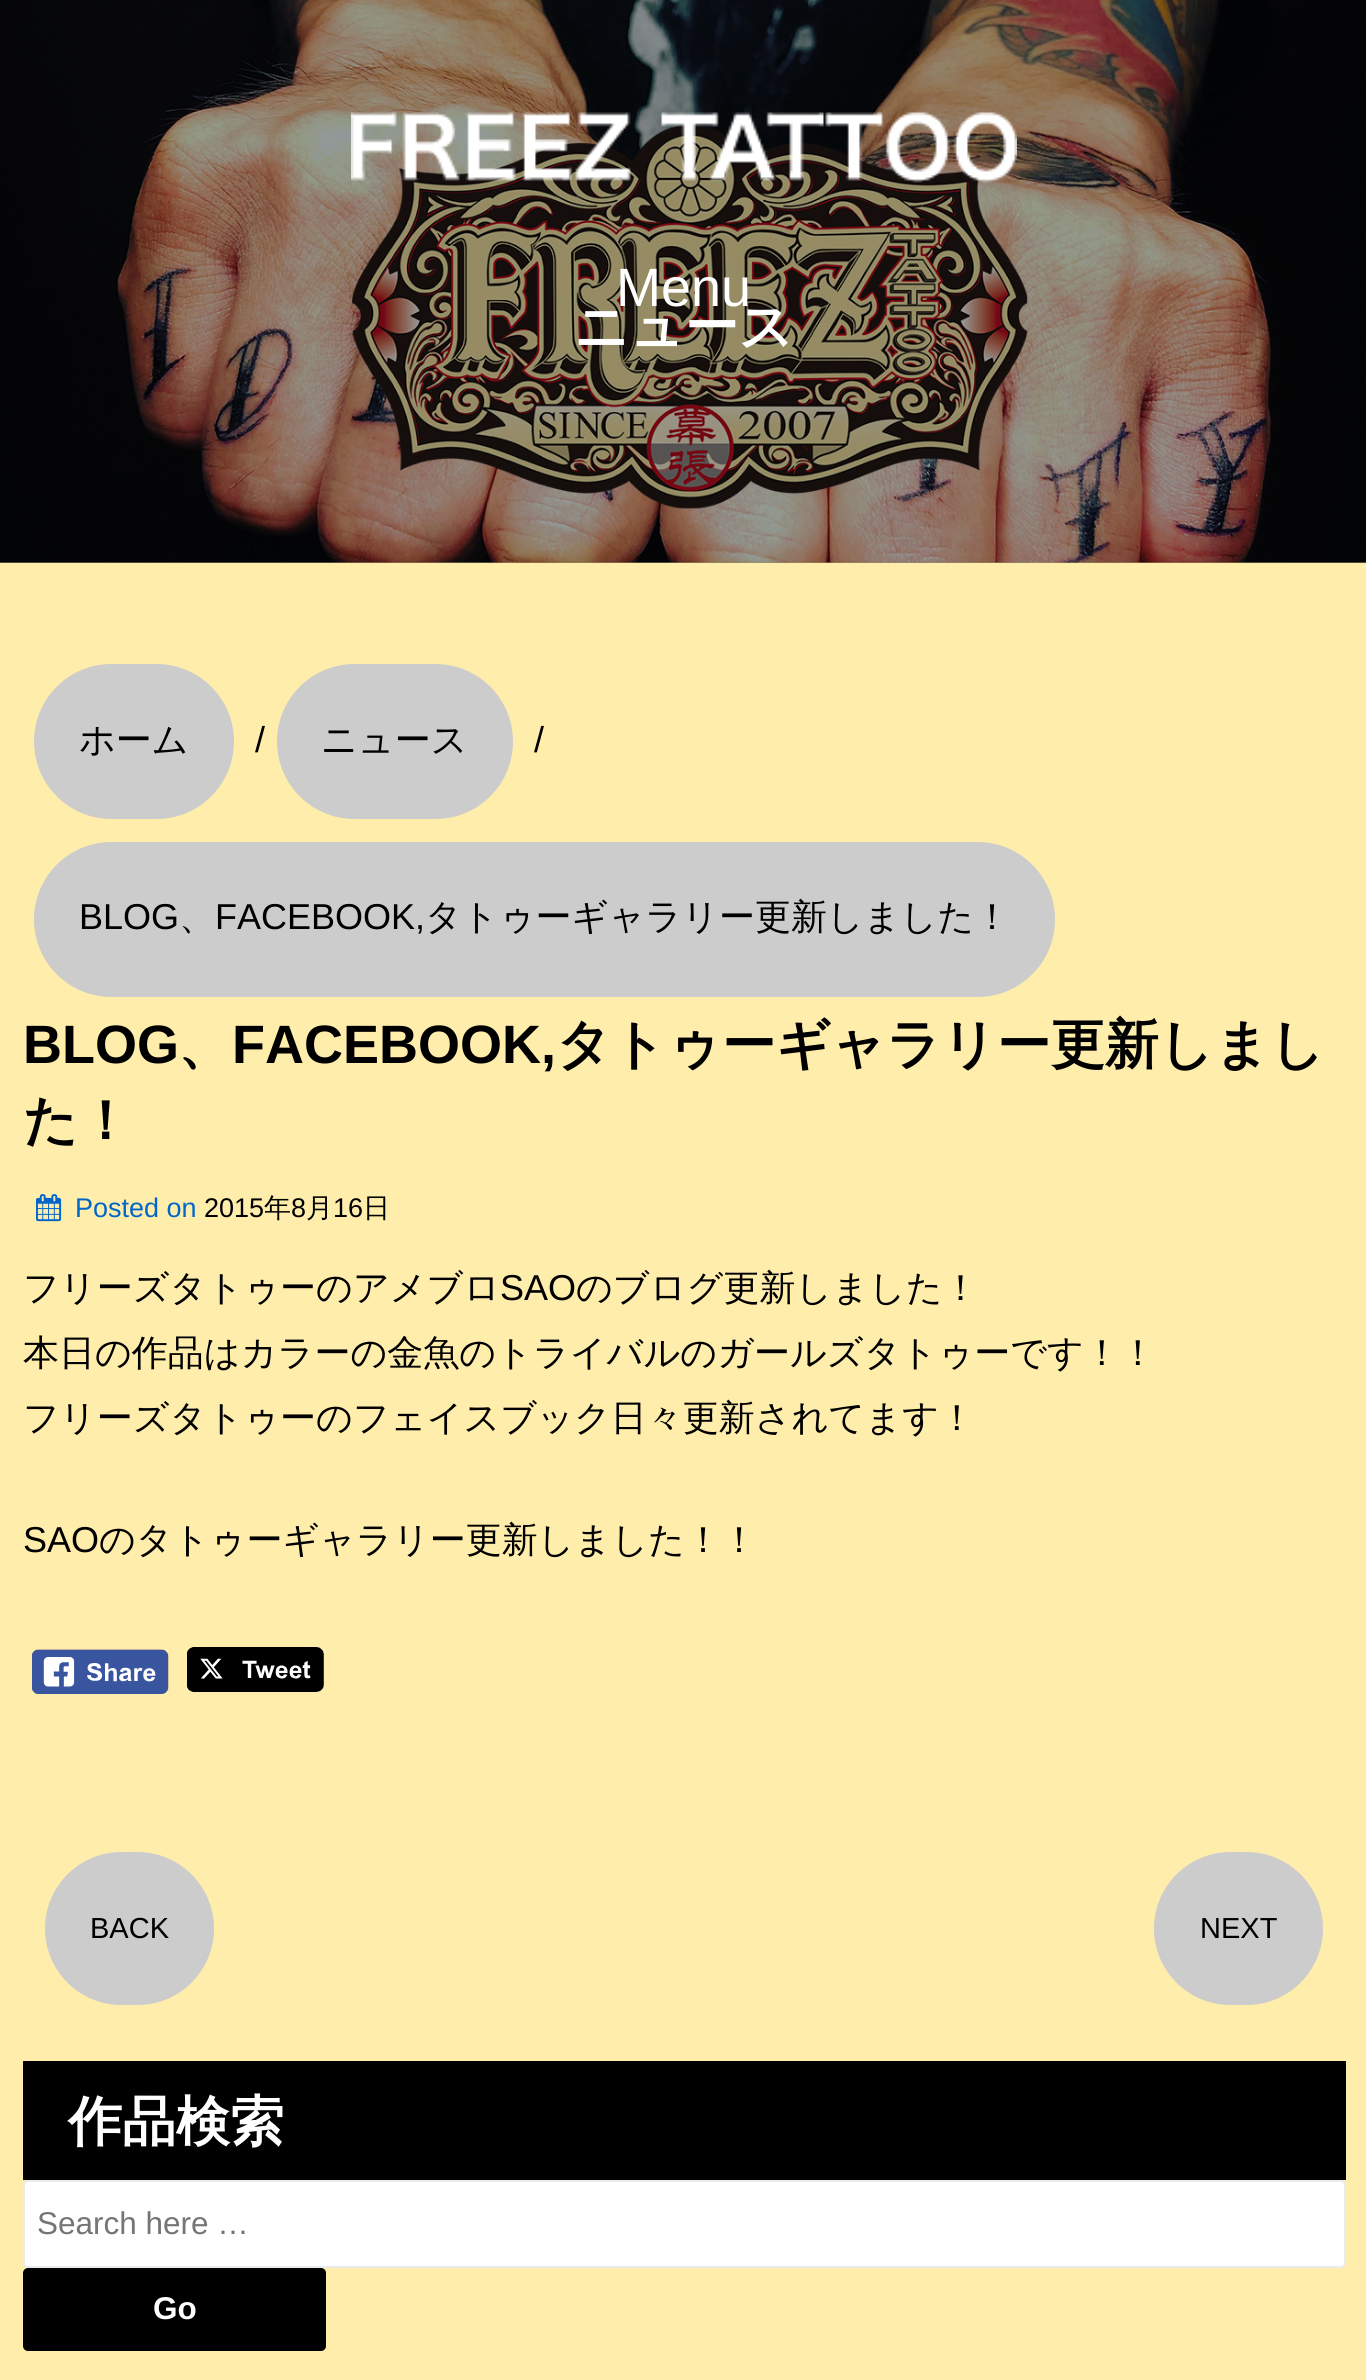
#include <cairo.h>
#include <math.h>
#include <stddef.h>


static void round_rect(cairo_t *cr, double x, double y, double w, double h, double r) {
    cairo_new_sub_path(cr);
    cairo_arc(cr, x + w - r, y + h - r, r, 0, M_PI / 2);
    cairo_arc(cr, x + r, y + h - r, r, M_PI / 2, M_PI);
    cairo_arc(cr, x + r, y + r, r, M_PI, 1.5 * M_PI);
    cairo_arc(cr, x + w - r, y + r, r, 1.5 * M_PI, 2 * M_PI);
    cairo_close_path(cr);
}

static void picture(cairo_t *cr, const char *path, double x, double y, double w, double h) {
    cairo_surface_t *image = cairo_image_surface_create_from_png(path);
    cairo_save(cr);
    cairo_set_source_surface(cr, image, x, y);
    cairo_rectangle(cr, x, y, w, h);
    cairo_fill(cr);
    cairo_restore(cr);
    cairo_surface_destroy(image);
}

int main(void) {
    cairo_surface_t *surface = cairo_image_surface_create(CAIRO_FORMAT_RGB24, 1366, 2380);
    cairo_t *cr = cairo_create(surface);
    cairo_font_options_t *options = cairo_font_options_create();
    cairo_font_options_set_hint_metrics(options, CAIRO_HINT_METRICS_OFF);
    cairo_font_options_set_hint_style(options, CAIRO_HINT_STYLE_NONE);
    cairo_set_font_options(cr, options);
    cairo_set_miter_limit(cr, 4);
    cairo_set_source_rgb(cr, 1, 0.929, 0.671);
    cairo_paint(cr);
    cairo_set_source_rgb(cr, 0.6, 0.557, 0.404);
    cairo_rectangle(cr, 0, 562, 1366, 1);
    cairo_fill(cr);
    picture(cr, "img2.png", 0, 0, 1366, 563);
    picture(cr, "img1.png", 351, 112, 666, 71);
    cairo_select_font_face(cr, "Liberation Sans", CAIRO_FONT_SLANT_NORMAL, CAIRO_FONT_WEIGHT_NORMAL);
    cairo_set_font_size(cr, 54);
    cairo_set_source_rgb(cr, 1, 1, 1);
    cairo_move_to(cr, 616, 306);
    cairo_show_text(cr, "Menu");
    cairo_select_font_face(cr, "WenQuanYi Zen Hei", CAIRO_FONT_SLANT_NORMAL, CAIRO_FONT_WEIGHT_BOLD);
    cairo_move_to(cr, 574, 345);
    cairo_show_text(cr, "ニュース");
    cairo_set_source_rgb(cr, 0.8, 0.8, 0.8);
    round_rect(cr, 34, 664, 200, 155, 77.5);
    cairo_fill(cr);
    cairo_select_font_face(cr, "WenQuanYi Zen Hei Medium", CAIRO_FONT_SLANT_NORMAL, CAIRO_FONT_WEIGHT_NORMAL);
    cairo_set_font_size(cr, 36);
    cairo_set_source_rgb(cr, 0, 0, 0);
    cairo_move_to(cr, 79, 752);
    cairo_show_text(cr, "ホーム");
    cairo_select_font_face(cr, "Liberation Sans", CAIRO_FONT_SLANT_NORMAL, CAIRO_FONT_WEIGHT_NORMAL);
    cairo_move_to(cr, 255, 752);
    cairo_show_text(cr, "/");
    cairo_set_source_rgb(cr, 0.8, 0.8, 0.8);
    round_rect(cr, 277, 664, 236, 155, 77.5);
    cairo_fill(cr);
    cairo_select_font_face(cr, "WenQuanYi Zen Hei Medium", CAIRO_FONT_SLANT_NORMAL, CAIRO_FONT_WEIGHT_NORMAL);
    cairo_set_source_rgb(cr, 0, 0, 0);
    cairo_move_to(cr, 321, 752);
    cairo_show_text(cr, "ニュース");
    cairo_select_font_face(cr, "Liberation Sans", CAIRO_FONT_SLANT_NORMAL, CAIRO_FONT_WEIGHT_NORMAL);
    cairo_move_to(cr, 534, 752);
    cairo_show_text(cr, "/");
    cairo_set_source_rgb(cr, 0.8, 0.8, 0.8);
    round_rect(cr, 34, 842, 1021, 155, 77.5);
    cairo_fill(cr);
    cairo_set_source_rgb(cr, 0, 0, 0);
    cairo_move_to(cr, 79, 929);
    cairo_show_text(cr, "BLOG");
    cairo_select_font_face(cr, "WenQuanYi Zen Hei Medium", CAIRO_FONT_SLANT_NORMAL, CAIRO_FONT_WEIGHT_NORMAL);
    cairo_move_to(cr, 179, 929);
    cairo_show_text(cr, "、");
    cairo_select_font_face(cr, "Liberation Sans", CAIRO_FONT_SLANT_NORMAL, CAIRO_FONT_WEIGHT_NORMAL);
    cairo_move_to(cr, 215, 929);
    cairo_show_text(cr, "FACEBOOK,");
    cairo_select_font_face(cr, "WenQuanYi Zen Hei Medium", CAIRO_FONT_SLANT_NORMAL, CAIRO_FONT_WEIGHT_NORMAL);
    cairo_move_to(cr, 425, 929);
    cairo_show_text(cr, "タトゥーギャラリー更新しました！");
    cairo_select_font_face(cr, "Liberation Sans", CAIRO_FONT_SLANT_NORMAL, CAIRO_FONT_WEIGHT_BOLD);
    cairo_set_font_size(cr, 54);
    cairo_move_to(cr, 23, 1063);
    cairo_show_text(cr, "BLOG");
    cairo_select_font_face(cr, "WenQuanYi Zen Hei", CAIRO_FONT_SLANT_NORMAL, CAIRO_FONT_WEIGHT_BOLD);
    cairo_move_to(cr, 178, 1063);
    cairo_show_text(cr, "、");
    cairo_select_font_face(cr, "Liberation Sans", CAIRO_FONT_SLANT_NORMAL, CAIRO_FONT_WEIGHT_BOLD);
    cairo_move_to(cr, 232, 1063);
    cairo_show_text(cr, "FACEBOOK,");
    cairo_select_font_face(cr, "WenQuanYi Zen Hei", CAIRO_FONT_SLANT_NORMAL, CAIRO_FONT_WEIGHT_BOLD);
    cairo_move_to(cr, 556, 1063);
    cairo_show_text(cr, "タトゥーギャラリー更新しまし");
    cairo_move_to(cr, 23, 1139);
    cairo_show_text(cr, "た！");
    picture(cr, "img3.png", 36, 1194, 26, 28);
    cairo_select_font_face(cr, "Liberation Sans", CAIRO_FONT_SLANT_NORMAL, CAIRO_FONT_WEIGHT_NORMAL);
    cairo_set_font_size(cr, 27);
    cairo_set_source_rgb(cr, 0, 0.4, 0.8);
    cairo_move_to(cr, 75, 1217);
    cairo_show_text(cr, "Posted on");
    cairo_set_source_rgb(cr, 0, 0, 0);
    cairo_move_to(cr, 204, 1217);
    cairo_show_text(cr, "2015");
    cairo_select_font_face(cr, "WenQuanYi Zen Hei Medium", CAIRO_FONT_SLANT_NORMAL, CAIRO_FONT_WEIGHT_NORMAL);
    cairo_move_to(cr, 264, 1217);
    cairo_show_text(cr, "年");
    cairo_select_font_face(cr, "Liberation Sans", CAIRO_FONT_SLANT_NORMAL, CAIRO_FONT_WEIGHT_NORMAL);
    cairo_move_to(cr, 291, 1217);
    cairo_show_text(cr, "8");
    cairo_select_font_face(cr, "WenQuanYi Zen Hei Medium", CAIRO_FONT_SLANT_NORMAL, CAIRO_FONT_WEIGHT_NORMAL);
    cairo_move_to(cr, 306, 1217);
    cairo_show_text(cr, "月");
    cairo_select_font_face(cr, "Liberation Sans", CAIRO_FONT_SLANT_NORMAL, CAIRO_FONT_WEIGHT_NORMAL);
    cairo_move_to(cr, 333, 1217);
    cairo_show_text(cr, "16");
    cairo_select_font_face(cr, "WenQuanYi Zen Hei Medium", CAIRO_FONT_SLANT_NORMAL, CAIRO_FONT_WEIGHT_NORMAL);
    cairo_move_to(cr, 363, 1217);
    cairo_show_text(cr, "日");
    cairo_set_font_size(cr, 36);
    cairo_move_to(cr, 23, 1300);
    cairo_show_text(cr, "フリーズタトゥーのアメブロ");
    cairo_select_font_face(cr, "Liberation Sans", CAIRO_FONT_SLANT_NORMAL, CAIRO_FONT_WEIGHT_NORMAL);
    cairo_move_to(cr, 500, 1300);
    cairo_show_text(cr, "SAO");
    cairo_select_font_face(cr, "WenQuanYi Zen Hei Medium", CAIRO_FONT_SLANT_NORMAL, CAIRO_FONT_WEIGHT_NORMAL);
    cairo_move_to(cr, 576, 1300);
    cairo_show_text(cr, "のブログ更新しました！");
    cairo_move_to(cr, 23, 1365);
    cairo_show_text(cr, "本日の作品はカラーの金魚のトライバルのガールズタトゥーです！！");
    cairo_move_to(cr, 23, 1430);
    cairo_show_text(cr, "フリーズタトゥーのフェイスブック日々更新されてます！");
    cairo_select_font_face(cr, "Liberation Sans", CAIRO_FONT_SLANT_NORMAL, CAIRO_FONT_WEIGHT_NORMAL);
    cairo_move_to(cr, 23, 1552);
    cairo_show_text(cr, "SAO");
    cairo_select_font_face(cr, "WenQuanYi Zen Hei Medium", CAIRO_FONT_SLANT_NORMAL, CAIRO_FONT_WEIGHT_NORMAL);
    cairo_move_to(cr, 99, 1552);
    cairo_show_text(cr, "のタトゥーギャラリー更新しました！！");
    picture(cr, "img4.png", 32, 1649, 137, 45);
    picture(cr, "img5.png", 187, 1647, 137, 45);
    cairo_set_source_rgb(cr, 0.8, 0.8, 0.8);
    round_rect(cr, 45, 1852, 169, 153, 76.5);
    cairo_fill(cr);
    cairo_select_font_face(cr, "Liberation Sans", CAIRO_FONT_SLANT_NORMAL, CAIRO_FONT_WEIGHT_NORMAL);
    cairo_set_font_size(cr, 29);
    cairo_set_source_rgb(cr, 0, 0, 0);
    cairo_move_to(cr, 90, 1938);
    cairo_show_text(cr, "BACK");
    cairo_set_source_rgb(cr, 0.8, 0.8, 0.8);
    round_rect(cr, 1154, 1852, 169, 153, 76.5);
    cairo_fill(cr);
    cairo_set_source_rgb(cr, 0, 0, 0);
    cairo_move_to(cr, 1200, 1938);
    cairo_show_text(cr, "NEXT");
    cairo_rectangle(cr, 23, 2061, 1323, 119);
    cairo_fill(cr);
    cairo_select_font_face(cr, "WenQuanYi Zen Hei", CAIRO_FONT_SLANT_NORMAL, CAIRO_FONT_WEIGHT_BOLD);
    cairo_set_font_size(cr, 54);
    cairo_set_source_rgb(cr, 1, 1, 1);
    cairo_move_to(cr, 68, 2140);
    cairo_show_text(cr, "作品検索");
    round_rect(cr, 24, 2181, 1321, 86, 4);
    cairo_fill_preserve(cr);
    cairo_set_source_rgb(cr, 0.918, 0.918, 0.918);
    cairo_stroke(cr);
    cairo_select_font_face(cr, "Liberation Sans", CAIRO_FONT_SLANT_NORMAL, CAIRO_FONT_WEIGHT_NORMAL);
    cairo_set_font_size(cr, 31.5);
    cairo_set_source_rgb(cr, 0.459, 0.459, 0.459);
    cairo_move_to(cr, 37, 2234);
    cairo_show_text(cr, "Search here …");
    cairo_set_source_rgb(cr, 0, 0, 0);
    round_rect(cr, 23, 2268, 303, 83, 5);
    cairo_fill(cr);
    cairo_select_font_face(cr, "Liberation Sans", CAIRO_FONT_SLANT_NORMAL, CAIRO_FONT_WEIGHT_BOLD);
    cairo_set_source_rgb(cr, 1, 1, 1);
    cairo_move_to(cr, 153, 2319);
    cairo_show_text(cr, "Go");
    cairo_surface_write_to_png(surface, "page.png");
    cairo_font_options_destroy(options);
    cairo_destroy(cr);
    cairo_surface_destroy(surface);
    return 0;
}
